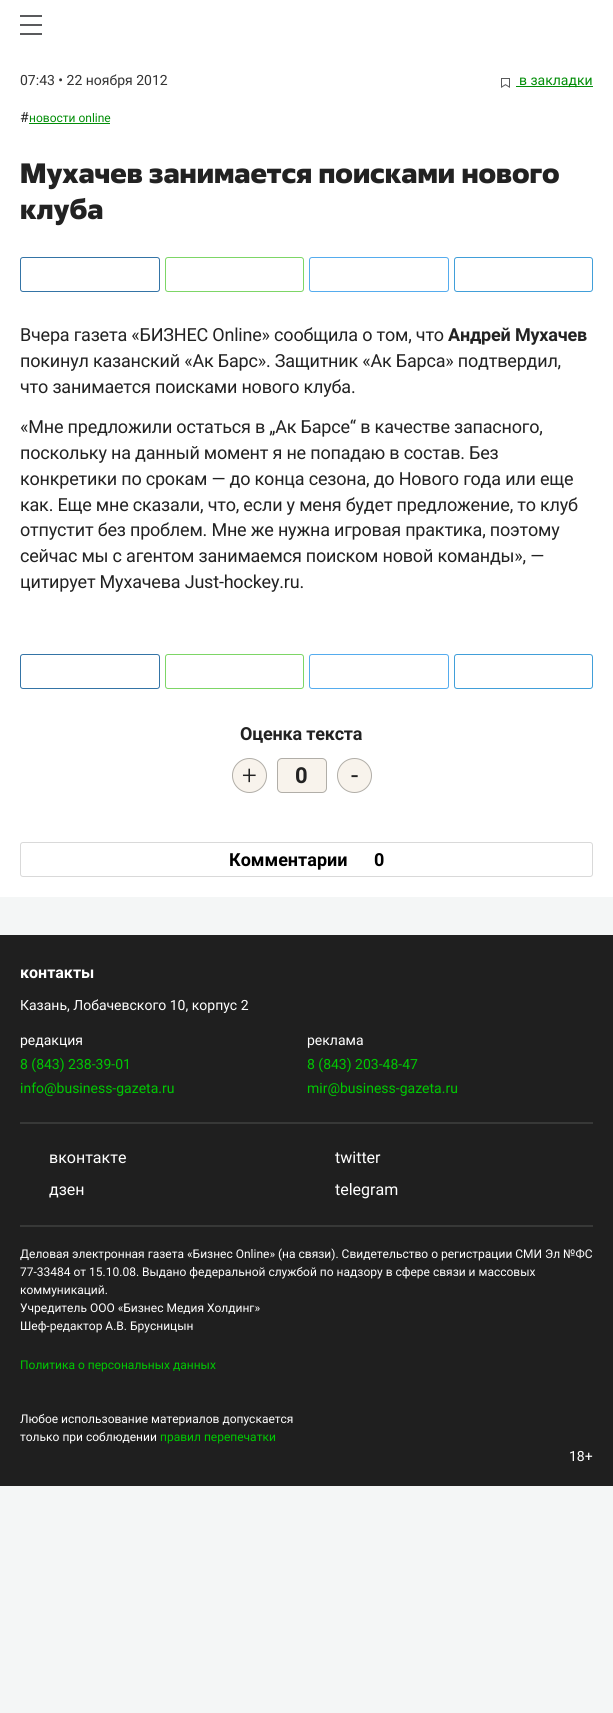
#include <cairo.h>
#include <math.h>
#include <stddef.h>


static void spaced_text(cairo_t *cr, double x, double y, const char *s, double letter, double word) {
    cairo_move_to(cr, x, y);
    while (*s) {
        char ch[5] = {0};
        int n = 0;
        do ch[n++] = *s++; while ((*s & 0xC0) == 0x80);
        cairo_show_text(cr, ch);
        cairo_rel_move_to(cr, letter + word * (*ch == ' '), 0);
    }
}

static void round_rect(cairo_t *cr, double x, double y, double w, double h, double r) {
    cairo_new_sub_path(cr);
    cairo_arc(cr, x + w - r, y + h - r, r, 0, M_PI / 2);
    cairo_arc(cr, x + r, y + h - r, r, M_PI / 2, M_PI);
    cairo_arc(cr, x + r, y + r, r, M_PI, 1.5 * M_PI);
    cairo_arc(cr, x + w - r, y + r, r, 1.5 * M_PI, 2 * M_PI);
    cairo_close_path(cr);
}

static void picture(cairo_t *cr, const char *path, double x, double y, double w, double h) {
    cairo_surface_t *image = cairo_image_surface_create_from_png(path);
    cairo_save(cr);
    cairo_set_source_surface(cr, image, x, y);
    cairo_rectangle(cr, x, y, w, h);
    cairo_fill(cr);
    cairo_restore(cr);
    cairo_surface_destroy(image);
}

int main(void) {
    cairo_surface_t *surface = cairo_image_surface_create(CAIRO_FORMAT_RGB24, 613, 1713);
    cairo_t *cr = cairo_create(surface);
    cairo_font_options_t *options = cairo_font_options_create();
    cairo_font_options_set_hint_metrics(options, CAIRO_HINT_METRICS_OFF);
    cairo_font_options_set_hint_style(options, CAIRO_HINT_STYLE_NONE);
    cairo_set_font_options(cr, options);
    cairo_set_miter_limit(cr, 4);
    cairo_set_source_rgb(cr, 0.957, 0.961, 0.961);
    cairo_paint(cr);
    cairo_set_source_rgb(cr, 1, 1, 1);
    cairo_rectangle(cr, 0, 0, 613, 897);
    cairo_fill(cr);
    cairo_set_source_rgb(cr, 0.349, 0.353, 0.361);
    cairo_rectangle(cr, 20, 15, 22, 20);
    cairo_fill(cr);
    cairo_set_source_rgb(cr, 1, 1, 1);
    cairo_rectangle(cr, 20, 17, 22, 7);
    cairo_fill(cr);
    cairo_rectangle(cr, 20, 26, 22, 7);
    cairo_fill(cr);
    cairo_select_font_face(cr, "Roboto", CAIRO_FONT_SLANT_NORMAL, CAIRO_FONT_WEIGHT_NORMAL);
    cairo_set_font_size(cr, 14);
    cairo_set_source_rgb(cr, 0.2, 0.2, 0.2);
    cairo_move_to(cr, 20, 85);
    cairo_show_text(cr, "07:43 • 22 ноября 2012");
    picture(cr, "img1.png", 501, 78, 9, 10);
    cairo_set_source_rgb(cr, 0.008, 0.557, 0.035);
    cairo_rectangle(cr, 516, 86, 77, 1);
    cairo_fill(cr);
    cairo_move_to(cr, 519, 85);
    cairo_show_text(cr, "в закладки");
    cairo_set_source_rgb(cr, 0.133, 0.133, 0.133);
    cairo_move_to(cr, 20, 122);
    cairo_show_text(cr, "#");
    cairo_set_font_size(cr, 12);
    cairo_set_source_rgb(cr, 0.008, 0.557, 0.035);
    cairo_move_to(cr, 29, 122);
    cairo_show_text(cr, "новости online");
    cairo_rectangle(cr, 29, 123, 81, 1);
    cairo_fill(cr);
    cairo_select_font_face(cr, "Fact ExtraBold", CAIRO_FONT_SLANT_NORMAL, CAIRO_FONT_WEIGHT_NORMAL);
    cairo_set_font_size(cr, 28);
    cairo_set_source_rgb(cr, 0.133, 0.133, 0.133);
    cairo_move_to(cr, 20, 183);
    cairo_show_text(cr, "Мухачев занимается поисками нового");
    cairo_move_to(cr, 20, 219);
    cairo_show_text(cr, "клуба");
    round_rect(cr, 20.5, 257.5, 139, 34, 2.5);
    cairo_set_source_rgb(cr, 0.204, 0.455, 0.651);
    cairo_set_line_width(cr, 1);
    cairo_stroke(cr);
    round_rect(cr, 165.5, 257.5, 138, 34, 2.5);
    cairo_set_source_rgb(cr, 0.49, 0.839, 0.4);
    cairo_stroke(cr);
    round_rect(cr, 309.5, 257.5, 139, 34, 2.5);
    cairo_set_source_rgb(cr, 0.333, 0.675, 0.933);
    cairo_stroke(cr);
    round_rect(cr, 454.5, 257.5, 138, 34, 2.5);
    cairo_set_source_rgb(cr, 0.255, 0.624, 0.851);
    cairo_stroke(cr);
    cairo_select_font_face(cr, "Roboto", CAIRO_FONT_SLANT_NORMAL, CAIRO_FONT_WEIGHT_NORMAL);
    cairo_set_font_size(cr, 18);
    cairo_set_source_rgb(cr, 0.133, 0.133, 0.133);
    spaced_text(cr, 20, 341, "Вчера газета «БИЗНЕС Online» сообщила о том, что", -0.2, 0);
    cairo_select_font_face(cr, "Roboto", CAIRO_FONT_SLANT_NORMAL, CAIRO_FONT_WEIGHT_BOLD);
    spaced_text(cr, 448, 341, "Андрей Мухачев", -0.2, 0);
    cairo_select_font_face(cr, "Roboto", CAIRO_FONT_SLANT_NORMAL, CAIRO_FONT_WEIGHT_NORMAL);
    spaced_text(cr, 20, 367, "покинул казанский «Ак Барс». Защитник «Ак Барса» подтвердил,", -0.2, 0);
    spaced_text(cr, 20, 393, "что занимается поисками нового клуба.", -0.2, 0);
    spaced_text(cr, 20, 433, "«Мне предложили остаться в „Ак Барсе“ в качестве запасного,", -0.2, 0);
    spaced_text(cr, 20, 459, "поскольку на данный момент я не попадаю в состав. Без", -0.2, 0);
    spaced_text(cr, 20, 485, "конкретики по срокам — до конца сезона, до Нового года или еще", -0.2, 0);
    spaced_text(cr, 20, 511, "как. Еще мне сказали, что, если у меня будет предложение, то клуб", -0.2, 0);
    spaced_text(cr, 20, 536, "отпустит без проблем. Мне же нужна игровая практика, поэтому", -0.2, 0);
    spaced_text(cr, 20, 562, "сейчас мы с агентом занимаемся поиском новой команды», —", -0.2, 0);
    spaced_text(cr, 20, 588, "цитирует Мухачева Just-hockey.ru.", -0.2, 0);
    round_rect(cr, 20.5, 654.5, 139, 34, 2.5);
    cairo_set_source_rgb(cr, 0.204, 0.455, 0.651);
    cairo_stroke(cr);
    round_rect(cr, 165.5, 654.5, 138, 34, 2.5);
    cairo_set_source_rgb(cr, 0.49, 0.839, 0.4);
    cairo_stroke(cr);
    round_rect(cr, 309.5, 654.5, 139, 34, 2.5);
    cairo_set_source_rgb(cr, 0.333, 0.675, 0.933);
    cairo_stroke(cr);
    round_rect(cr, 454.5, 654.5, 138, 34, 2.5);
    cairo_set_source_rgb(cr, 0.255, 0.624, 0.851);
    cairo_stroke(cr);
    cairo_select_font_face(cr, "Roboto", CAIRO_FONT_SLANT_NORMAL, CAIRO_FONT_WEIGHT_BOLD);
    cairo_set_source_rgb(cr, 0.133, 0.133, 0.133);
    spaced_text(cr, 240, 740, "Оценка текста", -0.2, 0);
    cairo_set_source_rgb(cr, 0.969, 0.953, 0.925);
    cairo_new_path(cr);
    cairo_arc(cr, 249.5, 775.5, 17, 0, 2 * M_PI);
    cairo_fill_preserve(cr);
    cairo_set_source_rgb(cr, 0.694, 0.682, 0.659);
    cairo_stroke(cr);
    cairo_select_font_face(cr, "Roboto Light", CAIRO_FONT_SLANT_NORMAL, CAIRO_FONT_WEIGHT_NORMAL);
    cairo_set_font_size(cr, 26);
    cairo_set_source_rgb(cr, 0.133, 0.133, 0.133);
    spaced_text(cr, 242, 784, "+", -0.2, 0);
    cairo_set_source_rgb(cr, 0.969, 0.953, 0.925);
    round_rect(cr, 277.5, 758.5, 49, 34, 4.5);
    cairo_fill_preserve(cr);
    cairo_set_source_rgb(cr, 0.694, 0.682, 0.659);
    cairo_stroke(cr);
    cairo_select_font_face(cr, "Roboto", CAIRO_FONT_SLANT_NORMAL, CAIRO_FONT_WEIGHT_BOLD);
    cairo_set_font_size(cr, 22);
    cairo_set_source_rgb(cr, 0.133, 0.133, 0.133);
    spaced_text(cr, 295, 783, "0", -0.2, 0);
    cairo_set_source_rgb(cr, 0.969, 0.953, 0.925);
    cairo_new_path(cr);
    cairo_arc(cr, 354.5, 775.5, 17, 0, 2 * M_PI);
    cairo_fill_preserve(cr);
    cairo_set_source_rgb(cr, 0.694, 0.682, 0.659);
    cairo_stroke(cr);
    cairo_select_font_face(cr, "Roboto", CAIRO_FONT_SLANT_NORMAL, CAIRO_FONT_WEIGHT_NORMAL);
    cairo_set_font_size(cr, 26);
    cairo_set_source_rgb(cr, 0.133, 0.133, 0.133);
    spaced_text(cr, 351, 784, "-", -0.2, 0);
    round_rect(cr, 20.5, 842.5, 572, 34, 2.5);
    cairo_set_source_rgb(cr, 0.851, 0.851, 0.851);
    cairo_stroke(cr);
    cairo_select_font_face(cr, "Roboto", CAIRO_FONT_SLANT_NORMAL, CAIRO_FONT_WEIGHT_BOLD);
    cairo_set_font_size(cr, 18);
    cairo_set_source_rgb(cr, 0, 0, 0);
    cairo_move_to(cr, 229, 866);
    cairo_show_text(cr, "Комментарии");
    cairo_move_to(cr, 374, 866);
    cairo_show_text(cr, "0");
    cairo_set_source_rgb(cr, 0.122, 0.122, 0.122);
    cairo_rectangle(cr, 0, 935, 613, 551);
    cairo_fill(cr);
    cairo_set_source_rgb(cr, 0.216, 0.22, 0.216);
    cairo_rectangle(cr, 20, 1122, 573, 2);
    cairo_fill(cr);
    cairo_set_font_size(cr, 16);
    cairo_set_source_rgb(cr, 1, 1, 1);
    cairo_move_to(cr, 20, 978);
    cairo_show_text(cr, "контакты");
    cairo_select_font_face(cr, "Roboto", CAIRO_FONT_SLANT_NORMAL, CAIRO_FONT_WEIGHT_NORMAL);
    cairo_set_font_size(cr, 14);
    cairo_move_to(cr, 20, 1010);
    cairo_show_text(cr, "Казань, Лобачевского 10, корпус 2");
    cairo_move_to(cr, 20, 1045);
    cairo_show_text(cr, "редакция");
    cairo_set_source_rgb(cr, 0, 0.784, 0.008);
    cairo_move_to(cr, 20, 1069);
    cairo_show_text(cr, "8 (843) 238-39-01");
    cairo_move_to(cr, 20, 1093);
    cairo_show_text(cr, "info@business-gazeta.ru");
    cairo_set_source_rgb(cr, 1, 1, 1);
    cairo_move_to(cr, 307, 1045);
    cairo_show_text(cr, "реклама");
    cairo_set_source_rgb(cr, 0, 0.784, 0.008);
    cairo_move_to(cr, 307, 1069);
    cairo_show_text(cr, "8 (843) 203-48-47");
    cairo_move_to(cr, 307, 1093);
    cairo_show_text(cr, "mir@business-gazeta.ru");
    cairo_set_source_rgb(cr, 0.216, 0.22, 0.216);
    cairo_rectangle(cr, 20, 1225, 573, 2);
    cairo_fill(cr);
    cairo_set_font_size(cr, 16);
    cairo_set_source_rgb(cr, 1, 1, 1);
    cairo_move_to(cr, 49, 1163);
    cairo_show_text(cr, "вконтакте");
    cairo_move_to(cr, 335, 1163);
    cairo_show_text(cr, "twitter");
    cairo_move_to(cr, 49, 1195);
    cairo_show_text(cr, "дзен");
    cairo_move_to(cr, 335, 1195);
    cairo_show_text(cr, "telegram");
    cairo_set_font_size(cr, 12);
    cairo_move_to(cr, 20, 1258);
    cairo_show_text(cr, "Деловая электронная газета «Бизнес Online» (на связи). Свидетельство о регистрации СМИ Эл №ФС");
    cairo_move_to(cr, 20, 1276);
    cairo_show_text(cr, "77-33484 от 15.10.08. Выдано федеральной службой по надзору в сфере связи и массовых");
    cairo_move_to(cr, 20, 1294);
    cairo_show_text(cr, "коммуникаций.");
    cairo_move_to(cr, 20, 1312);
    cairo_show_text(cr, "Учредитель ООО «Бизнес Медия Холдинг»");
    cairo_move_to(cr, 20, 1330);
    cairo_show_text(cr, "Шеф-редактор А.В. Брусницын");
    cairo_set_source_rgb(cr, 0, 0.784, 0.008);
    cairo_move_to(cr, 20, 1369);
    cairo_show_text(cr, "Политика о персональных данных");
    cairo_set_source_rgb(cr, 1, 1, 1);
    cairo_move_to(cr, 20, 1423);
    cairo_show_text(cr, "Любое использование материалов допускается");
    cairo_move_to(cr, 20, 1441);
    cairo_show_text(cr, "только при соблюдении");
    cairo_set_source_rgb(cr, 0, 0.784, 0.008);
    cairo_move_to(cr, 160, 1441);
    cairo_show_text(cr, "правил перепечатки");
    cairo_set_font_size(cr, 14);
    cairo_set_source_rgb(cr, 1, 1, 1);
    cairo_move_to(cr, 569, 1461);
    cairo_show_text(cr, "18+");
    cairo_surface_write_to_png(surface, "page.png");
    cairo_font_options_destroy(options);
    cairo_destroy(cr);
    cairo_surface_destroy(surface);
    return 0;
}
